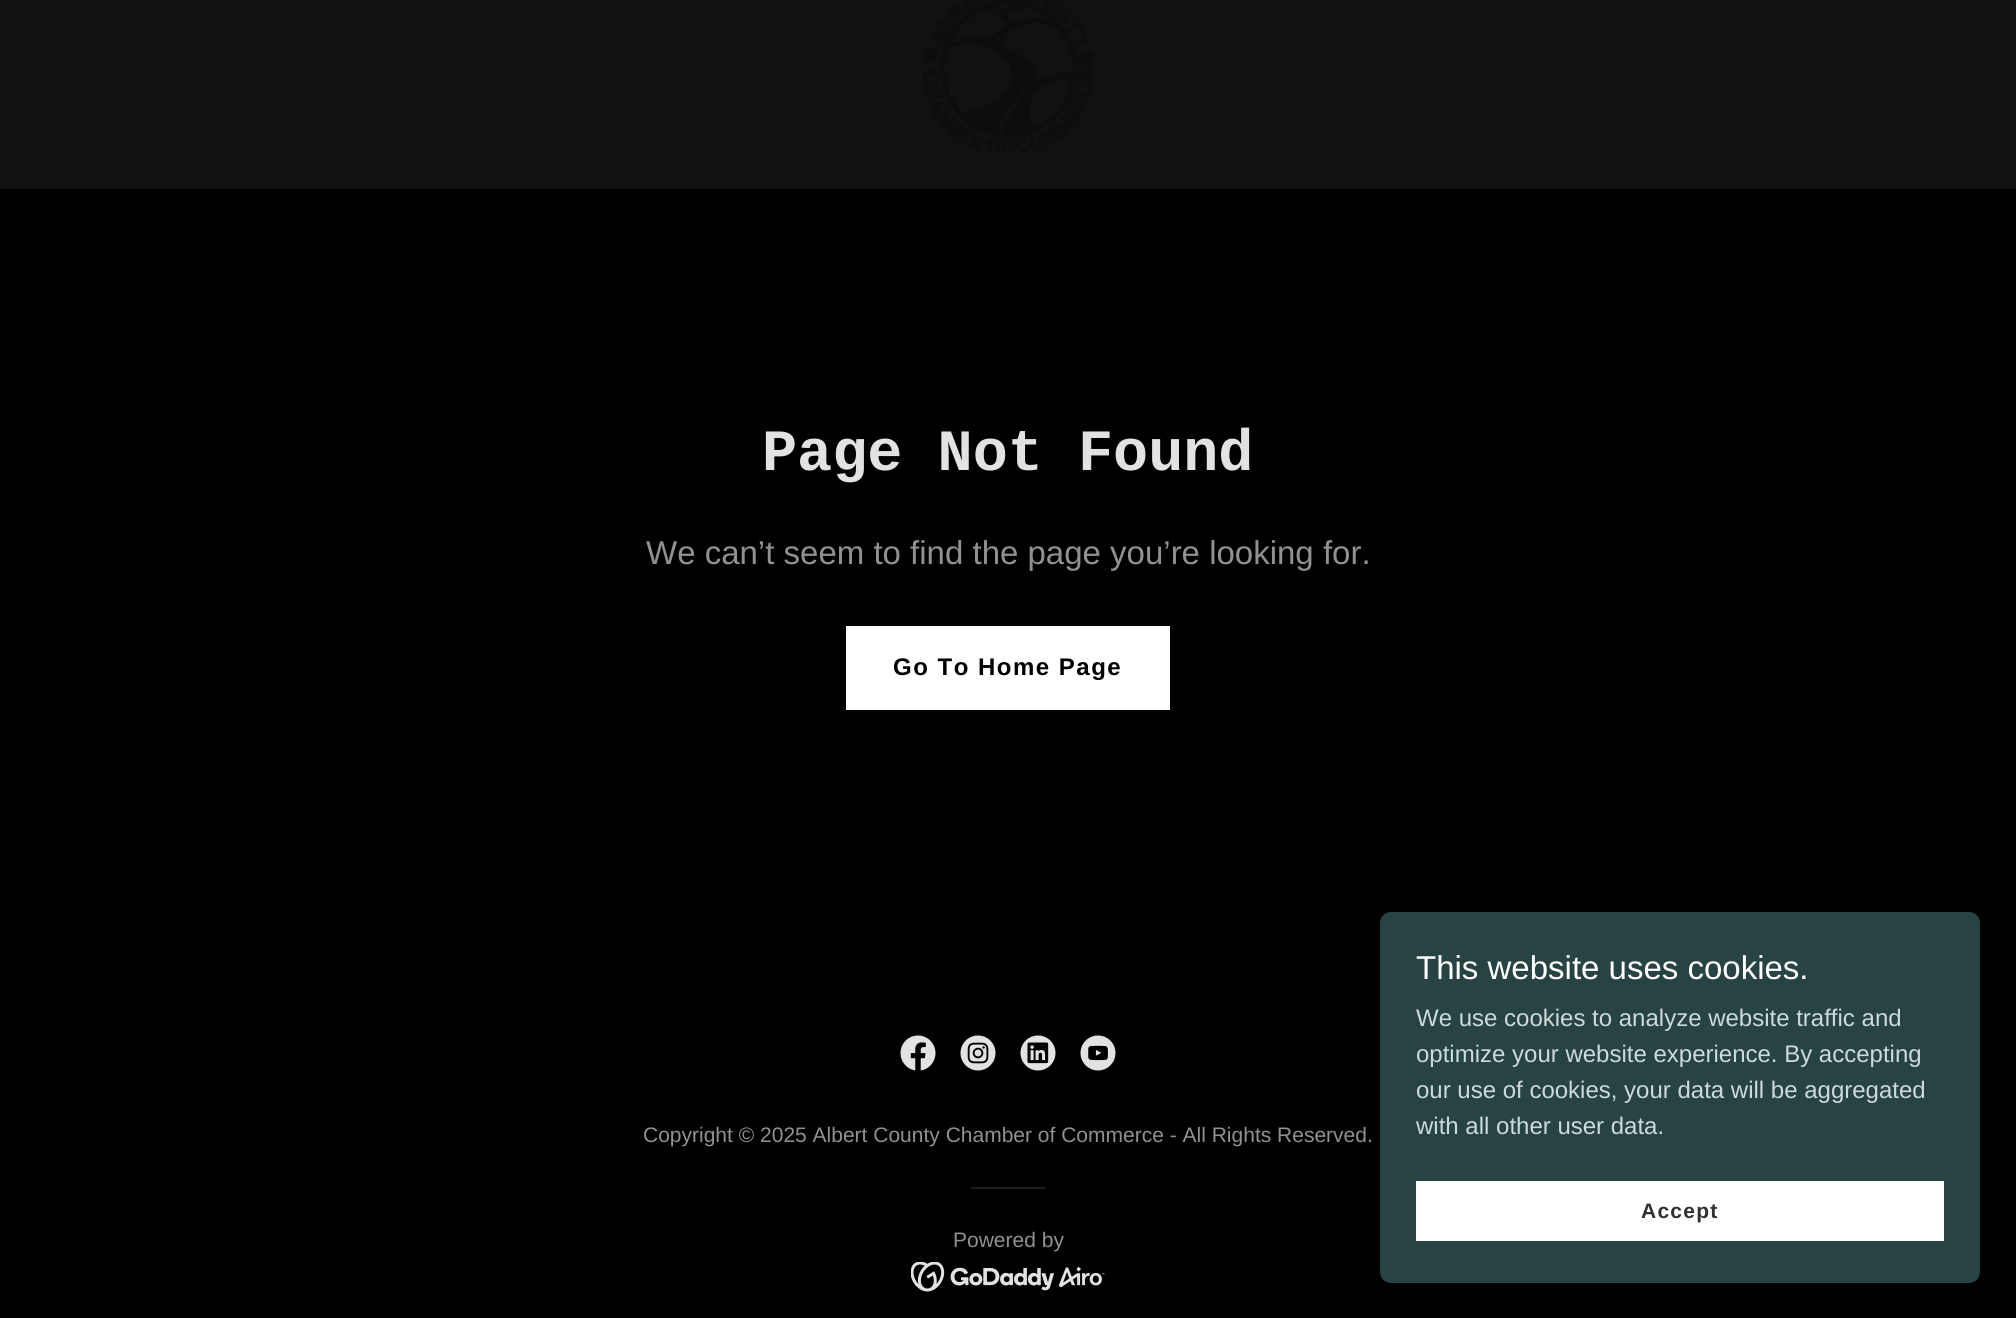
#include <cairo.h>
#include <math.h>
#include <stddef.h>


static void spaced_text(cairo_t *cr, double x, double y, const char *s, double letter, double word) {
    cairo_move_to(cr, x, y);
    while (*s) {
        char ch[5] = {0};
        int n = 0;
        do ch[n++] = *s++; while ((*s & 0xC0) == 0x80);
        cairo_show_text(cr, ch);
        cairo_rel_move_to(cr, letter + word * (*ch == ' '), 0);
    }
}

static void round_rect(cairo_t *cr, double x, double y, double w, double h, double r) {
    cairo_new_sub_path(cr);
    cairo_arc(cr, x + w - r, y + h - r, r, 0, M_PI / 2);
    cairo_arc(cr, x + r, y + h - r, r, M_PI / 2, M_PI);
    cairo_arc(cr, x + r, y + r, r, M_PI, 1.5 * M_PI);
    cairo_arc(cr, x + w - r, y + r, r, 1.5 * M_PI, 2 * M_PI);
    cairo_close_path(cr);
}

static void picture(cairo_t *cr, const char *path, double x, double y, double w, double h) {
    cairo_surface_t *image = cairo_image_surface_create_from_png(path);
    cairo_save(cr);
    cairo_set_source_surface(cr, image, x, y);
    cairo_rectangle(cr, x, y, w, h);
    cairo_fill(cr);
    cairo_restore(cr);
    cairo_surface_destroy(image);
}

int main(void) {
    cairo_surface_t *surface = cairo_image_surface_create(CAIRO_FORMAT_RGB24, 2016, 1318);
    cairo_t *cr = cairo_create(surface);
    cairo_font_options_t *options = cairo_font_options_create();
    cairo_font_options_set_hint_metrics(options, CAIRO_HINT_METRICS_OFF);
    cairo_font_options_set_hint_style(options, CAIRO_HINT_STYLE_NONE);
    cairo_set_font_options(cr, options);
    cairo_set_miter_limit(cr, 4);
    cairo_set_source_rgb(cr, 0, 0, 0);
    cairo_paint(cr);
    cairo_set_source_rgb(cr, 0.067, 0.067, 0.067);
    cairo_rectangle(cr, 0, 0, 2016, 189);
    cairo_fill(cr);
    picture(cr, "img1.png", 923, 0, 169, 152);
    cairo_select_font_face(cr, "Liberation Mono", CAIRO_FONT_SLANT_NORMAL, CAIRO_FONT_WEIGHT_BOLD);
    cairo_set_font_size(cr, 58.5);
    cairo_set_source_rgb(cr, 0.886, 0.886, 0.886);
    cairo_move_to(cr, 762, 470);
    cairo_show_text(cr, "Page Not Found");
    cairo_select_font_face(cr, "Liberation Sans", CAIRO_FONT_SLANT_NORMAL, CAIRO_FONT_WEIGHT_NORMAL);
    cairo_set_font_size(cr, 33);
    cairo_set_source_rgb(cr, 0.569, 0.569, 0.569);
    cairo_move_to(cr, 646, 564);
    cairo_show_text(cr, "We can’t seem to find the page you’re looking for.");
    cairo_set_source_rgb(cr, 1, 1, 1);
    cairo_rectangle(cr, 846, 626, 324, 84);
    cairo_fill(cr);
    cairo_select_font_face(cr, "Liberation Sans", CAIRO_FONT_SLANT_NORMAL, CAIRO_FONT_WEIGHT_BOLD);
    cairo_set_font_size(cr, 24);
    cairo_set_source_rgb(cr, 0, 0, 0);
    spaced_text(cr, 893, 675, "Go To Home Page", 1.5, 0);
    picture(cr, "img2.png", 900, 1035, 36, 36);
    picture(cr, "img3.png", 960, 1035, 36, 36);
    picture(cr, "img4.png", 1020, 1035, 36, 36);
    picture(cr, "img5.png", 1080, 1035, 36, 36);
    cairo_select_font_face(cr, "Liberation Sans", CAIRO_FONT_SLANT_NORMAL, CAIRO_FONT_WEIGHT_NORMAL);
    cairo_set_font_size(cr, 21);
    cairo_set_source_rgb(cr, 0.569, 0.569, 0.569);
    cairo_move_to(cr, 643, 1142);
    cairo_show_text(cr, "Copyright © 2025 Albert County Chamber of Commerce - All Rights Reserved.");
    cairo_set_source_rgb(cr, 0.106, 0.106, 0.106);
    cairo_rectangle(cr, 971, 1187, 75, 2);
    cairo_fill(cr);
    cairo_set_source_rgb(cr, 0.569, 0.569, 0.569);
    cairo_move_to(cr, 953, 1247);
    cairo_show_text(cr, "Powered by");
    picture(cr, "img6.png", 911, 1262, 194, 30);
    cairo_set_source_rgb(cr, 0.153, 0.263, 0.263);
    round_rect(cr, 1380, 912, 600, 371, 11);
    cairo_fill(cr);
    cairo_set_font_size(cr, 33);
    cairo_set_source_rgb(cr, 1, 1, 1);
    cairo_move_to(cr, 1416, 979);
    cairo_show_text(cr, "This website uses cookies.");
    cairo_set_font_size(cr, 24);
    cairo_set_source_rgb(cr, 0.804, 0.855, 0.855);
    cairo_move_to(cr, 1416, 1026);
    cairo_show_text(cr, "We use cookies to analyze website traffic and");
    cairo_move_to(cr, 1416, 1062);
    cairo_show_text(cr, "optimize your website experience. By accepting");
    cairo_move_to(cr, 1416, 1098);
    cairo_show_text(cr, "our use of cookies, your data will be aggregated");
    cairo_move_to(cr, 1416, 1134);
    cairo_show_text(cr, "with all other user data.");
    cairo_set_source_rgb(cr, 1, 1, 1);
    cairo_rectangle(cr, 1416, 1181, 528, 60);
    cairo_fill(cr);
    cairo_select_font_face(cr, "Liberation Sans", CAIRO_FONT_SLANT_NORMAL, CAIRO_FONT_WEIGHT_BOLD);
    cairo_set_font_size(cr, 21);
    cairo_set_source_rgb(cr, 0.188, 0.188, 0.188);
    spaced_text(cr, 1641, 1218, "Accept", 1.25, 0);
    cairo_surface_write_to_png(surface, "page.png");
    cairo_font_options_destroy(options);
    cairo_destroy(cr);
    cairo_surface_destroy(surface);
    return 0;
}
